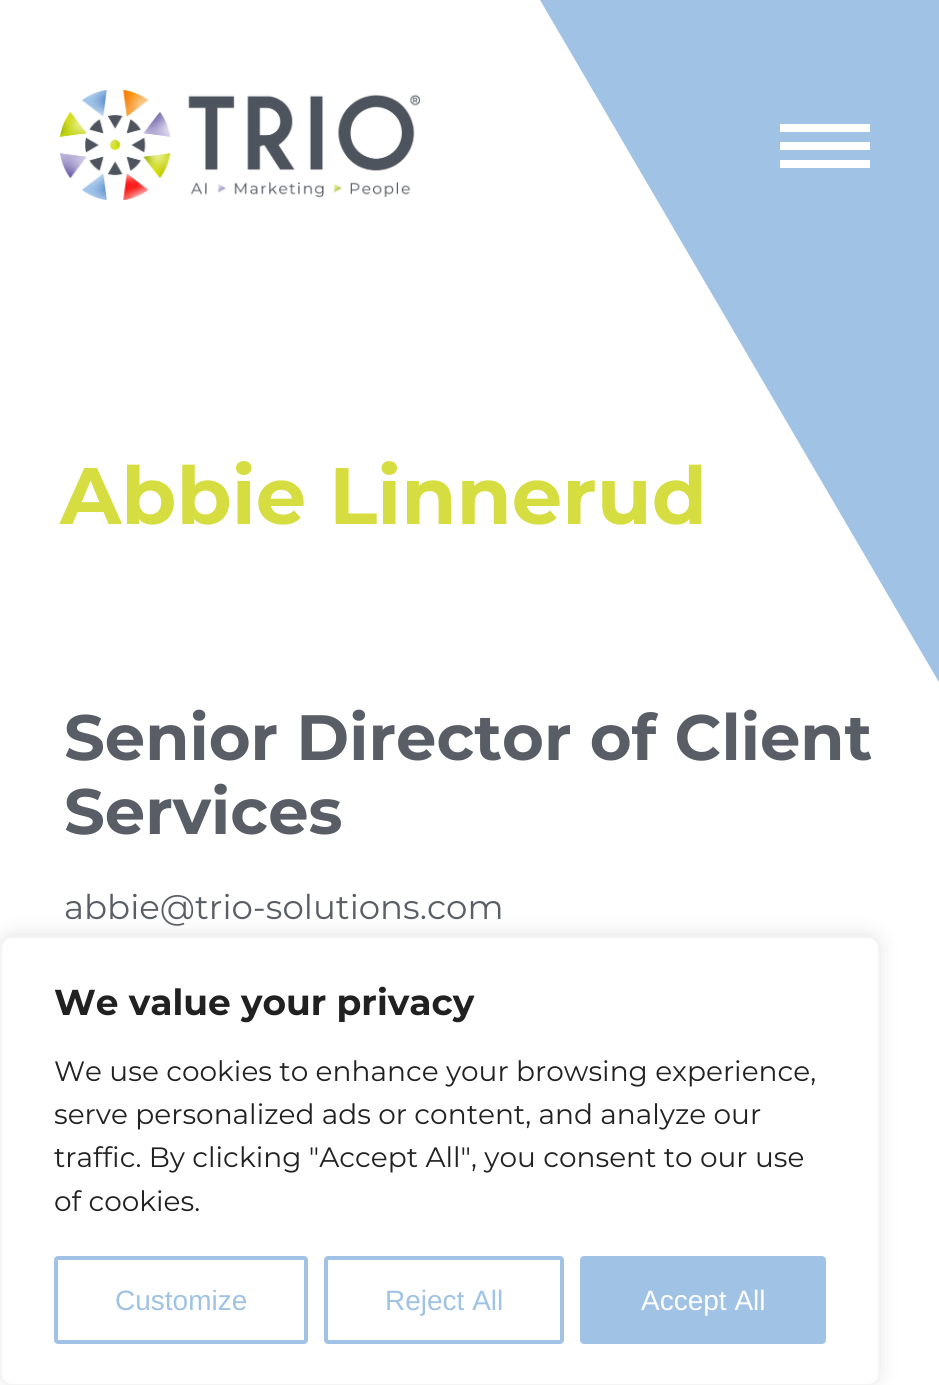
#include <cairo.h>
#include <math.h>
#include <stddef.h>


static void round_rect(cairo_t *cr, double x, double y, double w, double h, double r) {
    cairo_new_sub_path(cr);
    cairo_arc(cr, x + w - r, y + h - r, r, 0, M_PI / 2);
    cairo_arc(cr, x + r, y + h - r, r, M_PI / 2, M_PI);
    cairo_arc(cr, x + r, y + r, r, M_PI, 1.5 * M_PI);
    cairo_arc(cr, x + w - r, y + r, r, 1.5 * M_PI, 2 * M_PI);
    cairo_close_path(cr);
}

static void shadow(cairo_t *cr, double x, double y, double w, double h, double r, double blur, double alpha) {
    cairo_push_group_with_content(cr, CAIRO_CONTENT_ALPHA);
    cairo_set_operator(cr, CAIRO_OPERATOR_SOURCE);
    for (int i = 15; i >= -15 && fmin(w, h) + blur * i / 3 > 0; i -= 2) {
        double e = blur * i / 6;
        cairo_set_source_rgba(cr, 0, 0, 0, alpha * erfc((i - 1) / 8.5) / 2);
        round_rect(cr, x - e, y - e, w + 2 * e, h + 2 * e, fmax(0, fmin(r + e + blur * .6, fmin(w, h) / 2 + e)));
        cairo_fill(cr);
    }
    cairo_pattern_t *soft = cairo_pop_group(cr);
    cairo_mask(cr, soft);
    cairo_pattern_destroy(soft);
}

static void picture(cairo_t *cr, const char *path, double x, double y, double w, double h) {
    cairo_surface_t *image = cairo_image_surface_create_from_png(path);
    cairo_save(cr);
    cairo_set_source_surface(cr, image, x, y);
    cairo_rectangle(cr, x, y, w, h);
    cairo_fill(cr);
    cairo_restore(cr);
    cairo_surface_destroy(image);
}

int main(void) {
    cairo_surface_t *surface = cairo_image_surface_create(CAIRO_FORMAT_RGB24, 939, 1385);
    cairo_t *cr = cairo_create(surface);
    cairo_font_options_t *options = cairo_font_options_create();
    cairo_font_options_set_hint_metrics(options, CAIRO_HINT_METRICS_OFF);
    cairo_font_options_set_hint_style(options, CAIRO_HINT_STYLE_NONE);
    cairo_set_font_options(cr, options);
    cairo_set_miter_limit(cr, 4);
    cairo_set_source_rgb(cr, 1, 1, 1);
    cairo_paint(cr);
    cairo_set_source_rgb(cr, 0.627, 0.761, 0.898);
    cairo_new_path(cr);
    cairo_move_to(cr, 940, 0);
    cairo_line_to(cr, 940, 684);
    cairo_line_to(cr, 540, 0);
    cairo_close_path(cr);
    cairo_fill(cr);
    picture(cr, "img1.png", 60, 90, 360, 110);
    cairo_set_source_rgb(cr, 1, 1, 1);
    cairo_rectangle(cr, 780, 142, 90, 8);
    cairo_fill(cr);
    cairo_rectangle(cr, 780, 124, 90, 8);
    cairo_fill(cr);
    cairo_rectangle(cr, 780, 160, 90, 8);
    cairo_fill(cr);
    cairo_select_font_face(cr, "Montserrat", CAIRO_FONT_SLANT_NORMAL, CAIRO_FONT_WEIGHT_BOLD);
    cairo_set_font_size(cr, 80);
    cairo_set_source_rgb(cr, 0.839, 0.867, 0.251);
    cairo_move_to(cr, 60, 524);
    cairo_show_text(cr, "Abbie Linnerud");
    cairo_set_font_size(cr, 64);
    cairo_set_source_rgb(cr, 0.349, 0.369, 0.4);
    cairo_move_to(cr, 64, 760);
    cairo_show_text(cr, "Senior Director of Client");
    cairo_move_to(cr, 64, 834);
    cairo_show_text(cr, "Services");
    cairo_select_font_face(cr, "Montserrat", CAIRO_FONT_SLANT_NORMAL, CAIRO_FONT_WEIGHT_NORMAL);
    cairo_set_font_size(cr, 34);
    cairo_move_to(cr, 64, 919);
    cairo_show_text(cr, "abbie@trio-solutions.com");
    cairo_set_source_rgb(cr, 0.675, 0.671, 0.671);
    shadow(cr, 0, 934, 880, 450, 12, 10, 0.3);
    cairo_set_source_rgb(cr, 1, 1, 1);
    round_rect(cr, 1, 937, 878, 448, 11);
    cairo_fill_preserve(cr);
    cairo_set_source_rgb(cr, 0.957, 0.957, 0.957);
    cairo_stroke(cr);
    cairo_select_font_face(cr, "Montserrat", CAIRO_FONT_SLANT_NORMAL, CAIRO_FONT_WEIGHT_BOLD);
    cairo_set_font_size(cr, 36);
    cairo_set_source_rgb(cr, 0.129, 0.129, 0.129);
    cairo_move_to(cr, 54, 1015);
    cairo_show_text(cr, "We value your privacy");
    cairo_select_font_face(cr, "Montserrat", CAIRO_FONT_SLANT_NORMAL, CAIRO_FONT_WEIGHT_NORMAL);
    cairo_set_font_size(cr, 28);
    cairo_move_to(cr, 54, 1081);
    cairo_show_text(cr, "We use cookies to enhance your browsing experience,");
    cairo_move_to(cr, 54, 1124);
    cairo_show_text(cr, "serve personalized ads or content, and analyze our");
    cairo_move_to(cr, 54, 1167);
    cairo_show_text(cr, "traffic. By clicking \"Accept All\", you consent to our use");
    cairo_move_to(cr, 54, 1211);
    cairo_show_text(cr, "of cookies.");
    round_rect(cr, 56, 1258, 250, 84, 2);
    cairo_set_source_rgb(cr, 0.627, 0.761, 0.898);
    cairo_set_line_width(cr, 4);
    cairo_stroke(cr);
    cairo_select_font_face(cr, "Liberation Sans", CAIRO_FONT_SLANT_NORMAL, CAIRO_FONT_WEIGHT_NORMAL);
    cairo_move_to(cr, 115, 1310);
    cairo_show_text(cr, "Customize");
    round_rect(cr, 326, 1258, 236, 84, 2);
    cairo_stroke(cr);
    cairo_move_to(cr, 385, 1310);
    cairo_show_text(cr, "Reject All");
    round_rect(cr, 582, 1258, 242, 84, 2);
    cairo_fill_preserve(cr);
    cairo_stroke(cr);
    cairo_set_source_rgb(cr, 1, 1, 1);
    cairo_move_to(cr, 641, 1310);
    cairo_show_text(cr, "Accept All");
    cairo_surface_write_to_png(surface, "page.png");
    cairo_font_options_destroy(options);
    cairo_destroy(cr);
    cairo_surface_destroy(surface);
    return 0;
}
